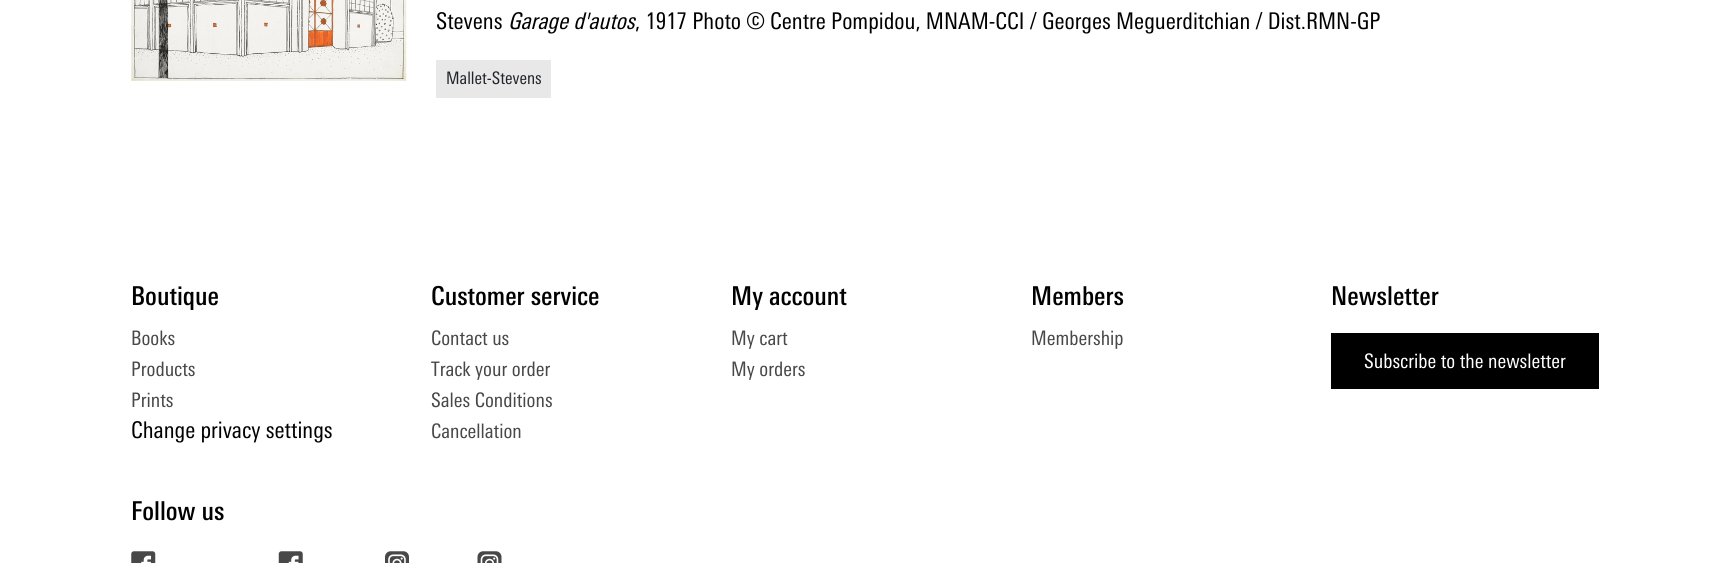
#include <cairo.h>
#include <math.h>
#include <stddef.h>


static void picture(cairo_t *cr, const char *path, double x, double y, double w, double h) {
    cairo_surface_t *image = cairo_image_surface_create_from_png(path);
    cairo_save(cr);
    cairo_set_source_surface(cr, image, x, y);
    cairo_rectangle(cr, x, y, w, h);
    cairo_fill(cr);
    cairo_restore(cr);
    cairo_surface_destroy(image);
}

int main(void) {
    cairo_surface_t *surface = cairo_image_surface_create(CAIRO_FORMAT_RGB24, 1729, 563);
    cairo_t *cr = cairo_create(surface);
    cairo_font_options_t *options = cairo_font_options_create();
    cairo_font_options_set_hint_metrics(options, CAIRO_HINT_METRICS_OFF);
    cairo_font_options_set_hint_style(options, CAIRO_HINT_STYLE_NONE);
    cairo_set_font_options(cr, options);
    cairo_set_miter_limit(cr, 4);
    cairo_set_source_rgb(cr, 1, 1, 1);
    cairo_paint(cr);
    picture(cr, "img1.png", 131, 0, 276, 81);
    cairo_select_font_face(cr, "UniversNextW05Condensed", CAIRO_FONT_SLANT_NORMAL, CAIRO_FONT_WEIGHT_NORMAL);
    cairo_set_font_size(cr, 23);
    cairo_set_source_rgb(cr, 0, 0, 0);
    cairo_move_to(cr, 436, 29);
    cairo_show_text(cr, "Stevens");
    cairo_select_font_face(cr, "UniversNextW05Condensed", CAIRO_FONT_SLANT_ITALIC, CAIRO_FONT_WEIGHT_NORMAL);
    cairo_move_to(cr, 508, 29);
    cairo_show_text(cr, "Garage d'autos");
    cairo_select_font_face(cr, "UniversNextW05Condensed", CAIRO_FONT_SLANT_NORMAL, CAIRO_FONT_WEIGHT_NORMAL);
    cairo_move_to(cr, 635, 29);
    cairo_show_text(cr, ", 1917 Photo © Centre Pompidou, MNAM-CCI / Georges Meguerditchian / Dist.RMN-GP");
    cairo_set_source_rgb(cr, 0.91, 0.91, 0.91);
    cairo_rectangle(cr, 436, 60, 115, 38);
    cairo_fill(cr);
    cairo_set_font_size(cr, 17.25);
    cairo_set_source_rgb(cr, 0.129, 0.145, 0.161);
    cairo_move_to(cr, 446, 84);
    cairo_show_text(cr, "Mallet-Stevens");
    cairo_select_font_face(cr, "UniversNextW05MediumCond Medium", CAIRO_FONT_SLANT_NORMAL, CAIRO_FONT_WEIGHT_NORMAL);
    cairo_set_font_size(cr, 26);
    cairo_set_source_rgb(cr, 0, 0, 0);
    cairo_move_to(cr, 131, 305);
    cairo_show_text(cr, "Boutique");
    cairo_select_font_face(cr, "UniversNextW05Condensed", CAIRO_FONT_SLANT_NORMAL, CAIRO_FONT_WEIGHT_NORMAL);
    cairo_set_font_size(cr, 20);
    cairo_set_source_rgb(cr, 0.282, 0.282, 0.282);
    cairo_move_to(cr, 131, 345);
    cairo_show_text(cr, "Books");
    cairo_move_to(cr, 131, 376);
    cairo_show_text(cr, "Products");
    cairo_move_to(cr, 131, 407);
    cairo_show_text(cr, "Prints");
    cairo_set_font_size(cr, 23);
    cairo_set_source_rgb(cr, 0, 0, 0);
    cairo_move_to(cr, 131, 438);
    cairo_show_text(cr, "Change privacy settings");
    cairo_select_font_face(cr, "UniversNextW05MediumCond Medium", CAIRO_FONT_SLANT_NORMAL, CAIRO_FONT_WEIGHT_NORMAL);
    cairo_set_font_size(cr, 26);
    cairo_move_to(cr, 431, 305);
    cairo_show_text(cr, "Customer service");
    cairo_select_font_face(cr, "UniversNextW05Condensed", CAIRO_FONT_SLANT_NORMAL, CAIRO_FONT_WEIGHT_NORMAL);
    cairo_set_font_size(cr, 20);
    cairo_set_source_rgb(cr, 0.282, 0.282, 0.282);
    cairo_move_to(cr, 431, 345);
    cairo_show_text(cr, "Contact us");
    cairo_move_to(cr, 431, 376);
    cairo_show_text(cr, "Track your order");
    cairo_move_to(cr, 431, 407);
    cairo_show_text(cr, "Sales Conditions");
    cairo_move_to(cr, 431, 438);
    cairo_show_text(cr, "Cancellation");
    cairo_select_font_face(cr, "UniversNextW05MediumCond Medium", CAIRO_FONT_SLANT_NORMAL, CAIRO_FONT_WEIGHT_NORMAL);
    cairo_set_font_size(cr, 26);
    cairo_set_source_rgb(cr, 0, 0, 0);
    cairo_move_to(cr, 731, 305);
    cairo_show_text(cr, "My account");
    cairo_select_font_face(cr, "UniversNextW05Condensed", CAIRO_FONT_SLANT_NORMAL, CAIRO_FONT_WEIGHT_NORMAL);
    cairo_set_font_size(cr, 20);
    cairo_set_source_rgb(cr, 0.282, 0.282, 0.282);
    cairo_move_to(cr, 731, 345);
    cairo_show_text(cr, "My cart");
    cairo_move_to(cr, 731, 376);
    cairo_show_text(cr, "My orders");
    cairo_select_font_face(cr, "UniversNextW05MediumCond Medium", CAIRO_FONT_SLANT_NORMAL, CAIRO_FONT_WEIGHT_NORMAL);
    cairo_set_font_size(cr, 26);
    cairo_set_source_rgb(cr, 0, 0, 0);
    cairo_move_to(cr, 1031, 305);
    cairo_show_text(cr, "Members");
    cairo_select_font_face(cr, "UniversNextW05Condensed", CAIRO_FONT_SLANT_NORMAL, CAIRO_FONT_WEIGHT_NORMAL);
    cairo_set_font_size(cr, 20);
    cairo_set_source_rgb(cr, 0.282, 0.282, 0.282);
    cairo_move_to(cr, 1031, 345);
    cairo_show_text(cr, "Membership");
    cairo_select_font_face(cr, "UniversNextW05MediumCond Medium", CAIRO_FONT_SLANT_NORMAL, CAIRO_FONT_WEIGHT_NORMAL);
    cairo_set_font_size(cr, 26);
    cairo_set_source_rgb(cr, 0, 0, 0);
    cairo_move_to(cr, 1331, 305);
    cairo_show_text(cr, "Newsletter");
    cairo_rectangle(cr, 1331, 333, 268, 56);
    cairo_fill(cr);
    cairo_select_font_face(cr, "UniversNextW05Condensed", CAIRO_FONT_SLANT_NORMAL, CAIRO_FONT_WEIGHT_NORMAL);
    cairo_set_font_size(cr, 20);
    cairo_set_source_rgb(cr, 1, 1, 1);
    cairo_move_to(cr, 1364, 368);
    cairo_show_text(cr, "Subscribe to the newsletter");
    cairo_select_font_face(cr, "UniversNextW05MediumCond Medium", CAIRO_FONT_SLANT_NORMAL, CAIRO_FONT_WEIGHT_NORMAL);
    cairo_set_font_size(cr, 26);
    cairo_set_source_rgb(cr, 0, 0, 0);
    cairo_move_to(cr, 131, 520);
    cairo_show_text(cr, "Follow us");
    picture(cr, "img2.png", 131, 551, 25, 12);
    picture(cr, "img3.png", 278, 551, 25, 12);
    picture(cr, "img4.png", 385, 551, 24, 12);
    picture(cr, "img5.png", 477, 551, 25, 12);
    cairo_surface_write_to_png(surface, "page.png");
    cairo_font_options_destroy(options);
    cairo_destroy(cr);
    cairo_surface_destroy(surface);
    return 0;
}
